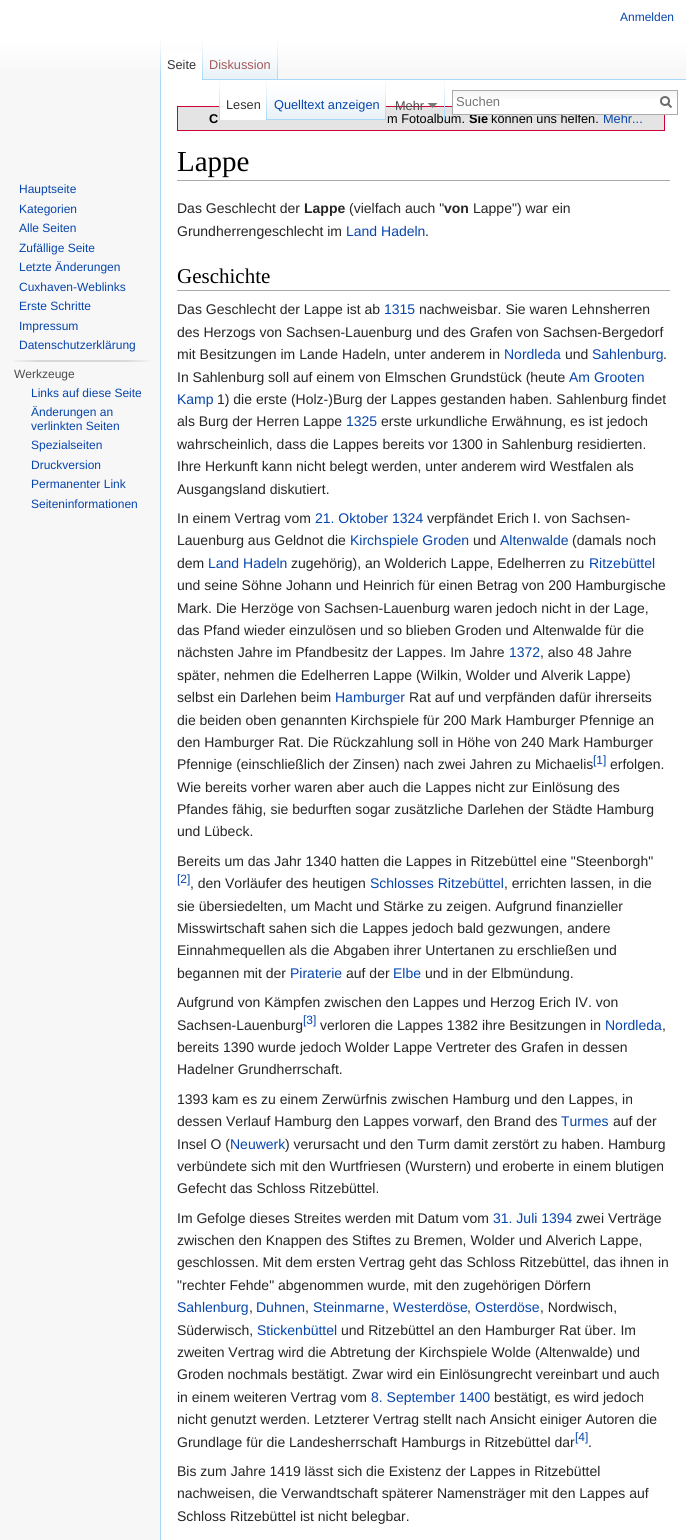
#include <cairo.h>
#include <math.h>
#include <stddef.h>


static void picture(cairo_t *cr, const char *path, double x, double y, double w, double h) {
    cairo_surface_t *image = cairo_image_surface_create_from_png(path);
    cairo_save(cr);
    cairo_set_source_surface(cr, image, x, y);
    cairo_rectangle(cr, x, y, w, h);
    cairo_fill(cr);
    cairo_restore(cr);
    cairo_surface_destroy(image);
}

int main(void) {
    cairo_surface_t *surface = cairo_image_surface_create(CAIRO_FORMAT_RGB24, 686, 1540);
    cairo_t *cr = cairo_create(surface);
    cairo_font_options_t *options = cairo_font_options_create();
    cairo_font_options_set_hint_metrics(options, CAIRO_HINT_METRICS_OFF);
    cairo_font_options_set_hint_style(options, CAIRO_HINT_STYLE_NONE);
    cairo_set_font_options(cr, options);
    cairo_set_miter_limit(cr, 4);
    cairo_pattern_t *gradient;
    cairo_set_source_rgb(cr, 0.965, 0.965, 0.965);
    cairo_paint(cr);
    gradient = cairo_pattern_create_linear(343, 0, 343, 80);
    cairo_pattern_add_color_stop_rgba(gradient, 0.5, 1, 1, 1, 1);
    cairo_pattern_add_color_stop_rgba(gradient, 1, 0.965, 0.965, 0.965, 1);
    cairo_set_source(cr, gradient);
    cairo_pattern_destroy(gradient);
    cairo_rectangle(cr, 0, 0, 686, 69);
    cairo_fill(cr);
    cairo_select_font_face(cr, "Liberation Sans", CAIRO_FONT_SLANT_NORMAL, CAIRO_FONT_WEIGHT_NORMAL);
    cairo_set_font_size(cr, 12);
    cairo_set_source_rgb(cr, 0.024, 0.271, 0.678);
    cairo_move_to(cr, 620, 21);
    cairo_show_text(cr, "Anmelden");
    picture(cr, "img1.png", 160, 40, 1, 39);
    cairo_set_source_rgb(cr, 1, 1, 1);
    cairo_rectangle(cr, 161, 51, 41, 29);
    cairo_fill(cr);
    picture(cr, "img2.png", 202, 40, 1, 40);
    cairo_set_font_size(cr, 12.75);
    cairo_set_source_rgb(cr, 0.2, 0.2, 0.2);
    cairo_move_to(cr, 167, 69);
    cairo_show_text(cr, "Seite");
    picture(cr, "img3.png", 203, 40, 75, 40);
    picture(cr, "img4.png", 277, 40, 1, 39);
    cairo_set_source_rgb(cr, 0.647, 0.345, 0.345);
    cairo_move_to(cr, 209, 69);
    cairo_show_text(cr, "Diskussion");
    cairo_set_source_rgb(cr, 1, 1, 1);
    cairo_rectangle(cr, 161, 80, 525, 1460);
    cairo_fill(cr);
    cairo_set_source_rgb(cr, 0.894, 0.894, 0.894);
    cairo_rectangle(cr, 177.5, 106.5, 487, 24);
    cairo_fill_preserve(cr);
    cairo_set_source_rgb(cr, 0.8, 0, 0.2);
    cairo_set_line_width(cr, 1);
    cairo_stroke(cr);
    picture(cr, "img5.png", 219, 80, 1, 40);
    cairo_set_source_rgb(cr, 1, 1, 1);
    cairo_rectangle(cr, 220, 106, 46, 14);
    cairo_fill(cr);
    picture(cr, "img2.png", 266, 80, 1, 40);
    cairo_set_source_rgb(cr, 0.2, 0.2, 0.2);
    cairo_move_to(cr, 226, 109);
    cairo_show_text(cr, "Lesen");
    picture(cr, "img6.png", 267, 80, 119, 40);
    picture(cr, "img4.png", 385, 80, 1, 39);
    cairo_set_source_rgb(cr, 0.024, 0.271, 0.678);
    cairo_move_to(cr, 274, 109);
    cairo_show_text(cr, "Quelltext anzeigen");
    cairo_set_source_rgb(cr, 0, 0, 0);
    cairo_move_to(cr, 387, 123);
    cairo_show_text(cr, "m Fotoalbum.");
    picture(cr, "img5.png", 444, 80, 1, 40);
    cairo_set_source_rgb(cr, 0.302, 0.302, 0.302);
    cairo_move_to(cr, 395, 110);
    cairo_show_text(cr, "Mehr");
    cairo_set_source_rgb(cr, 0.475, 0.475, 0.475);
    cairo_new_path(cr);
    cairo_move_to(cr, 437.5, 103);
    cairo_line_to(cr, 432.5, 108);
    cairo_line_to(cr, 427.5, 103);
    cairo_close_path(cr);
    cairo_fill(cr);
    cairo_select_font_face(cr, "Liberation Sans", CAIRO_FONT_SLANT_NORMAL, CAIRO_FONT_WEIGHT_BOLD);
    cairo_set_source_rgb(cr, 0, 0, 0);
    cairo_move_to(cr, 469, 123);
    cairo_show_text(cr, "Sie");
    cairo_select_font_face(cr, "Liberation Sans", CAIRO_FONT_SLANT_NORMAL, CAIRO_FONT_WEIGHT_NORMAL);
    cairo_move_to(cr, 491, 123);
    cairo_show_text(cr, "können uns helfen.");
    cairo_set_source_rgb(cr, 0.024, 0.271, 0.678);
    cairo_move_to(cr, 603, 123);
    cairo_show_text(cr, "Mehr...");
    cairo_set_source_rgb(cr, 1, 1, 1);
    cairo_rectangle(cr, 453, 106, 212, 8);
    cairo_fill(cr);
    picture(cr, "img7.png", 453, 91, 224, 8);
    cairo_rectangle(cr, 452.5, 90.5, 225, 24);
    cairo_set_source_rgb(cr, 0.667, 0.667, 0.667);
    cairo_stroke(cr);
    cairo_set_font_size(cr, 13);
    cairo_set_source_rgb(cr, 0.459, 0.459, 0.459);
    cairo_move_to(cr, 456, 106);
    cairo_show_text(cr, "Suchen");
    cairo_new_path(cr);
    cairo_move_to(cr, 671.5, 107.5);
    cairo_line_to(cr, 667.5, 103.5);
    cairo_set_source_rgb(cr, 0.424, 0.424, 0.424);
    cairo_set_line_width(cr, 2);
    cairo_stroke(cr);
    cairo_arc(cr, 665, 101, 4, 0, 2 * M_PI);
    cairo_stroke(cr);
    cairo_set_font_size(cr, 12);
    cairo_set_source_rgb(cr, 0.024, 0.271, 0.678);
    cairo_move_to(cr, 19, 193);
    cairo_show_text(cr, "Hauptseite");
    cairo_move_to(cr, 19, 213);
    cairo_show_text(cr, "Kategorien");
    cairo_move_to(cr, 19, 232);
    cairo_show_text(cr, "Alle Seiten");
    cairo_move_to(cr, 19, 252);
    cairo_show_text(cr, "Zufällige Seite");
    cairo_move_to(cr, 19, 271);
    cairo_show_text(cr, "Letzte Änderungen");
    cairo_move_to(cr, 19, 291);
    cairo_show_text(cr, "Cuxhaven-Weblinks");
    cairo_move_to(cr, 19, 310);
    cairo_show_text(cr, "Erste Schritte");
    cairo_move_to(cr, 19, 330);
    cairo_show_text(cr, "Impressum");
    cairo_move_to(cr, 19, 349);
    cairo_show_text(cr, "Datenschutzerklärung");
    picture(cr, "img8.png", 14, 360, 135, 2);
    cairo_set_source_rgb(cr, 0.302, 0.302, 0.302);
    cairo_move_to(cr, 14, 378);
    cairo_show_text(cr, "Werkzeuge");
    cairo_set_source_rgb(cr, 0.024, 0.271, 0.678);
    cairo_move_to(cr, 31, 397);
    cairo_show_text(cr, "Links auf diese Seite");
    cairo_move_to(cr, 31, 416);
    cairo_show_text(cr, "Änderungen an");
    cairo_move_to(cr, 31, 430);
    cairo_show_text(cr, "verlinkten Seiten");
    cairo_move_to(cr, 31, 449);
    cairo_show_text(cr, "Spezialseiten");
    cairo_move_to(cr, 31, 469);
    cairo_show_text(cr, "Druckversion");
    cairo_move_to(cr, 31, 488);
    cairo_show_text(cr, "Permanenter Link");
    cairo_move_to(cr, 31, 508);
    cairo_show_text(cr, "Seiteninformationen");
    cairo_set_source_rgb(cr, 0.655, 0.843, 0.976);
    cairo_rectangle(cr, 278, 79, 408, 1);
    cairo_fill(cr);
    cairo_rectangle(cr, 160, 79, 1, 1461);
    cairo_fill(cr);
    cairo_select_font_face(cr, "Liberation Sans", CAIRO_FONT_SLANT_NORMAL, CAIRO_FONT_WEIGHT_BOLD);
    cairo_set_font_size(cr, 12.75);
    cairo_set_source_rgb(cr, 0, 0, 0);
    cairo_move_to(cr, 209, 123);
    cairo_show_text(cr, "C");
    cairo_set_source_rgb(cr, 0.667, 0.667, 0.667);
    cairo_rectangle(cr, 177, 180, 493, 1);
    cairo_fill(cr);
    cairo_select_font_face(cr, "Liberation Serif", CAIRO_FONT_SLANT_NORMAL, CAIRO_FONT_WEIGHT_NORMAL);
    cairo_set_font_size(cr, 29);
    cairo_set_source_rgb(cr, 0, 0, 0);
    cairo_move_to(cr, 177, 171);
    cairo_show_text(cr, "Lappe");
    cairo_select_font_face(cr, "Liberation Sans", CAIRO_FONT_SLANT_NORMAL, CAIRO_FONT_WEIGHT_NORMAL);
    cairo_set_font_size(cr, 14);
    cairo_set_source_rgb(cr, 0.145, 0.145, 0.145);
    cairo_move_to(cr, 177, 213);
    cairo_show_text(cr, "Das Geschlecht der");
    cairo_select_font_face(cr, "Liberation Sans", CAIRO_FONT_SLANT_NORMAL, CAIRO_FONT_WEIGHT_BOLD);
    cairo_move_to(cr, 304, 213);
    cairo_show_text(cr, "Lappe");
    cairo_select_font_face(cr, "Liberation Sans", CAIRO_FONT_SLANT_NORMAL, CAIRO_FONT_WEIGHT_NORMAL);
    cairo_move_to(cr, 349, 213);
    cairo_show_text(cr, "(vielfach auch \"");
    cairo_select_font_face(cr, "Liberation Sans", CAIRO_FONT_SLANT_NORMAL, CAIRO_FONT_WEIGHT_BOLD);
    cairo_move_to(cr, 444, 213);
    cairo_show_text(cr, "von");
    cairo_select_font_face(cr, "Liberation Sans", CAIRO_FONT_SLANT_NORMAL, CAIRO_FONT_WEIGHT_NORMAL);
    cairo_move_to(cr, 473, 213);
    cairo_show_text(cr, "Lappe\") war ein");
    cairo_move_to(cr, 177, 236);
    cairo_show_text(cr, "Grundherrengeschlecht im");
    cairo_set_source_rgb(cr, 0.024, 0.271, 0.678);
    cairo_move_to(cr, 346, 236);
    cairo_show_text(cr, "Land Hadeln");
    cairo_set_source_rgb(cr, 0.145, 0.145, 0.145);
    cairo_move_to(cr, 425, 236);
    cairo_show_text(cr, ".");
    cairo_set_source_rgb(cr, 0.667, 0.667, 0.667);
    cairo_rectangle(cr, 177, 290, 493, 1);
    cairo_fill(cr);
    cairo_select_font_face(cr, "Liberation Serif", CAIRO_FONT_SLANT_NORMAL, CAIRO_FONT_WEIGHT_NORMAL);
    cairo_set_font_size(cr, 21);
    cairo_set_source_rgb(cr, 0, 0, 0);
    cairo_move_to(cr, 177, 283);
    cairo_show_text(cr, "Geschichte");
    cairo_select_font_face(cr, "Liberation Sans", CAIRO_FONT_SLANT_NORMAL, CAIRO_FONT_WEIGHT_NORMAL);
    cairo_set_font_size(cr, 14);
    cairo_set_source_rgb(cr, 0.145, 0.145, 0.145);
    cairo_move_to(cr, 177, 314);
    cairo_show_text(cr, "Das Geschlecht der Lappe ist ab");
    cairo_set_source_rgb(cr, 0.024, 0.271, 0.678);
    cairo_move_to(cr, 384, 314);
    cairo_show_text(cr, "1315");
    cairo_set_source_rgb(cr, 0.145, 0.145, 0.145);
    cairo_move_to(cr, 419, 314);
    cairo_show_text(cr, "nachweisbar. Sie waren Lehnsherren");
    cairo_move_to(cr, 177, 337);
    cairo_show_text(cr, "des Herzogs von Sachsen-Lauenburg und des Grafen von Sachsen-Bergedorf");
    cairo_move_to(cr, 177, 359);
    cairo_show_text(cr, "mit Besitzungen im Lande Hadeln, unter anderem in");
    cairo_set_source_rgb(cr, 0.024, 0.271, 0.678);
    cairo_move_to(cr, 504, 359);
    cairo_show_text(cr, "Nordleda");
    cairo_set_source_rgb(cr, 0.145, 0.145, 0.145);
    cairo_move_to(cr, 565, 359);
    cairo_show_text(cr, "und");
    cairo_set_source_rgb(cr, 0.024, 0.271, 0.678);
    cairo_move_to(cr, 592, 359);
    cairo_show_text(cr, "Sahlenburg");
    cairo_set_source_rgb(cr, 0.145, 0.145, 0.145);
    cairo_move_to(cr, 663, 359);
    cairo_show_text(cr, ".");
    cairo_move_to(cr, 177, 382);
    cairo_show_text(cr, "In Sahlenburg soll auf einem von Elmschen Grundstück (heute");
    cairo_set_source_rgb(cr, 0.024, 0.271, 0.678);
    cairo_move_to(cr, 569, 382);
    cairo_show_text(cr, "Am Grooten");
    cairo_move_to(cr, 177, 404);
    cairo_show_text(cr, "Kamp");
    cairo_set_source_rgb(cr, 0.145, 0.145, 0.145);
    cairo_move_to(cr, 217, 404);
    cairo_show_text(cr, "1) die erste (Holz-)Burg der Lappes gestanden haben. Sahlenburg findet");
    cairo_move_to(cr, 177, 426);
    cairo_show_text(cr, "als Burg der Herren Lappe");
    cairo_set_source_rgb(cr, 0.024, 0.271, 0.678);
    cairo_move_to(cr, 346, 426);
    cairo_show_text(cr, "1325");
    cairo_set_source_rgb(cr, 0.145, 0.145, 0.145);
    cairo_move_to(cr, 381, 426);
    cairo_show_text(cr, "erste urkundliche Erwähnung, es ist jedoch");
    cairo_move_to(cr, 177, 449);
    cairo_show_text(cr, "wahrscheinlich, dass die Lappes bereits vor 1300 in Sahlenburg residierten.");
    cairo_move_to(cr, 177, 471);
    cairo_show_text(cr, "Ihre Herkunft kann nicht belegt werden, unter anderem wird Westfalen als");
    cairo_move_to(cr, 177, 494);
    cairo_show_text(cr, "Ausgangsland diskutiert.");
    cairo_move_to(cr, 177, 523);
    cairo_show_text(cr, "In einem Vertrag vom");
    cairo_set_source_rgb(cr, 0.024, 0.271, 0.678);
    cairo_move_to(cr, 315, 523);
    cairo_show_text(cr, "21. Oktober 1324");
    cairo_set_source_rgb(cr, 0.145, 0.145, 0.145);
    cairo_move_to(cr, 427, 523);
    cairo_show_text(cr, "verpfändet Erich I. von Sachsen-");
    cairo_move_to(cr, 177, 545);
    cairo_show_text(cr, "Lauenburg aus Geldnot die");
    cairo_set_source_rgb(cr, 0.024, 0.271, 0.678);
    cairo_move_to(cr, 350, 545);
    cairo_show_text(cr, "Kirchspiele Groden");
    cairo_set_source_rgb(cr, 0.145, 0.145, 0.145);
    cairo_move_to(cr, 473, 545);
    cairo_show_text(cr, "und");
    cairo_set_source_rgb(cr, 0.024, 0.271, 0.678);
    cairo_move_to(cr, 500, 545);
    cairo_show_text(cr, "Altenwalde");
    cairo_set_source_rgb(cr, 0.145, 0.145, 0.145);
    cairo_move_to(cr, 572, 545);
    cairo_show_text(cr, "(damals noch");
    cairo_move_to(cr, 177, 568);
    cairo_show_text(cr, "dem");
    cairo_set_source_rgb(cr, 0.024, 0.271, 0.678);
    cairo_move_to(cr, 208, 568);
    cairo_show_text(cr, "Land Hadeln");
    cairo_set_source_rgb(cr, 0.145, 0.145, 0.145);
    cairo_move_to(cr, 291, 568);
    cairo_show_text(cr, "zugehörig), an Wolderich Lappe, Edelherren zu");
    cairo_set_source_rgb(cr, 0.024, 0.271, 0.678);
    cairo_move_to(cr, 589, 568);
    cairo_show_text(cr, "Ritzebüttel");
    cairo_set_source_rgb(cr, 0.145, 0.145, 0.145);
    cairo_move_to(cr, 177, 590);
    cairo_show_text(cr, "und seine Söhne Johann und Heinrich für einen Betrag von 200 Hamburgische");
    cairo_move_to(cr, 177, 613);
    cairo_show_text(cr, "Mark. Die Herzöge von Sachsen-Lauenburg waren jedoch nicht in der Lage,");
    cairo_move_to(cr, 177, 635);
    cairo_show_text(cr, "das Pfand wieder einzulösen und so blieben Groden und Altenwalde für die");
    cairo_move_to(cr, 177, 657);
    cairo_show_text(cr, "nächsten Jahre im Pfandbesitz der Lappes. Im Jahre");
    cairo_set_source_rgb(cr, 0.024, 0.271, 0.678);
    cairo_move_to(cr, 509, 657);
    cairo_show_text(cr, "1372");
    cairo_set_source_rgb(cr, 0.145, 0.145, 0.145);
    cairo_move_to(cr, 540, 657);
    cairo_show_text(cr, ", also 48 Jahre");
    cairo_move_to(cr, 177, 680);
    cairo_show_text(cr, "später, nehmen die Edelherren Lappe (Wilkin, Wolder und Alverik Lappe)");
    cairo_move_to(cr, 177, 702);
    cairo_show_text(cr, "selbst ein Darlehen beim");
    cairo_set_source_rgb(cr, 0.024, 0.271, 0.678);
    cairo_move_to(cr, 335, 702);
    cairo_show_text(cr, "Hamburger");
    cairo_set_source_rgb(cr, 0.145, 0.145, 0.145);
    cairo_move_to(cr, 409, 702);
    cairo_show_text(cr, "Rat auf und verpfänden dafür ihrerseits");
    cairo_move_to(cr, 177, 725);
    cairo_show_text(cr, "die beiden oben genannten Kirchspiele für 200 Mark Hamburger Pfennige an");
    cairo_move_to(cr, 177, 747);
    cairo_show_text(cr, "den Hamburger Rat. Die Rückzahlung soll in Höhe von 240 Mark Hamburger");
    cairo_move_to(cr, 177, 769);
    cairo_show_text(cr, "Pfennige (einschließlich der Zinsen) nach zwei Jahren zu Michaelis");
    cairo_set_font_size(cr, 12);
    cairo_set_source_rgb(cr, 0.024, 0.271, 0.678);
    cairo_move_to(cr, 593, 764);
    cairo_show_text(cr, "[1]");
    cairo_set_font_size(cr, 14);
    cairo_set_source_rgb(cr, 0.145, 0.145, 0.145);
    cairo_move_to(cr, 610, 769);
    cairo_show_text(cr, "erfolgen.");
    cairo_move_to(cr, 177, 792);
    cairo_show_text(cr, "Wie bereits vorher waren aber auch die Lappes nicht zur Einlösung des");
    cairo_move_to(cr, 177, 814);
    cairo_show_text(cr, "Pfandes fähig, sie bedurften sogar zusätzliche Darlehen der Städte Hamburg");
    cairo_move_to(cr, 177, 836);
    cairo_show_text(cr, "und Lübeck.");
    cairo_move_to(cr, 177, 866);
    cairo_show_text(cr, "Bereits um das Jahr 1340 hatten die Lappes in Ritzebüttel eine \"Steenborgh\"");
    cairo_set_font_size(cr, 12);
    cairo_set_source_rgb(cr, 0.024, 0.271, 0.678);
    cairo_move_to(cr, 177, 883);
    cairo_show_text(cr, "[2]");
    cairo_set_font_size(cr, 14);
    cairo_set_source_rgb(cr, 0.145, 0.145, 0.145);
    cairo_move_to(cr, 190, 888);
    cairo_show_text(cr, ", den Vorläufer des heutigen");
    cairo_set_source_rgb(cr, 0.024, 0.271, 0.678);
    cairo_move_to(cr, 370, 888);
    cairo_show_text(cr, "Schlosses Ritzebüttel");
    cairo_set_source_rgb(cr, 0.145, 0.145, 0.145);
    cairo_move_to(cr, 504, 888);
    cairo_show_text(cr, ", errichten lassen, in die");
    cairo_move_to(cr, 177, 911);
    cairo_show_text(cr, "sie übersiedelten, um Macht und Stärke zu zeigen. Aufgrund finanzieller");
    cairo_move_to(cr, 177, 933);
    cairo_show_text(cr, "Misswirtschaft sahen sich die Lappes jedoch bald gezwungen, andere");
    cairo_move_to(cr, 177, 955);
    cairo_show_text(cr, "Einnahmequellen als die Abgaben ihrer Untertanen zu erschließen und");
    cairo_move_to(cr, 177, 978);
    cairo_show_text(cr, "begannen mit der");
    cairo_set_source_rgb(cr, 0.024, 0.271, 0.678);
    cairo_move_to(cr, 290, 978);
    cairo_show_text(cr, "Piraterie");
    cairo_set_source_rgb(cr, 0.145, 0.145, 0.145);
    cairo_move_to(cr, 346, 978);
    cairo_show_text(cr, "auf der");
    cairo_set_source_rgb(cr, 0.024, 0.271, 0.678);
    cairo_move_to(cr, 393, 978);
    cairo_show_text(cr, "Elbe");
    cairo_set_source_rgb(cr, 0.145, 0.145, 0.145);
    cairo_move_to(cr, 425, 978);
    cairo_show_text(cr, "und in der Elbmündung.");
    cairo_move_to(cr, 177, 1007);
    cairo_show_text(cr, "Aufgrund von Kämpfen zwischen den Lappes und Herzog Erich IV. von");
    cairo_move_to(cr, 177, 1030);
    cairo_show_text(cr, "Sachsen-Lauenburg");
    cairo_set_font_size(cr, 12);
    cairo_set_source_rgb(cr, 0.024, 0.271, 0.678);
    cairo_move_to(cr, 303, 1024);
    cairo_show_text(cr, "[3]");
    cairo_set_font_size(cr, 14);
    cairo_set_source_rgb(cr, 0.145, 0.145, 0.145);
    cairo_move_to(cr, 320, 1030);
    cairo_show_text(cr, "verloren die Lappes 1382 ihre Besitzungen in");
    cairo_set_source_rgb(cr, 0.024, 0.271, 0.678);
    cairo_move_to(cr, 605, 1030);
    cairo_show_text(cr, "Nordleda");
    cairo_set_source_rgb(cr, 0.145, 0.145, 0.145);
    cairo_move_to(cr, 662, 1030);
    cairo_show_text(cr, ",");
    cairo_move_to(cr, 177, 1052);
    cairo_show_text(cr, "bereits 1390 wurde jedoch Wolder Lappe Vertreter des Grafen in dessen");
    cairo_move_to(cr, 177, 1074);
    cairo_show_text(cr, "Hadelner Grundherrschaft.");
    cairo_move_to(cr, 177, 1104);
    cairo_show_text(cr, "1393 kam es zu einem Zerwürfnis zwischen Hamburg und den Lappes, in");
    cairo_move_to(cr, 177, 1126);
    cairo_show_text(cr, "dessen Verlauf Hamburg den Lappes vorwarf, den Brand des");
    cairo_set_source_rgb(cr, 0.024, 0.271, 0.678);
    cairo_move_to(cr, 561, 1126);
    cairo_show_text(cr, "Turmes");
    cairo_set_source_rgb(cr, 0.145, 0.145, 0.145);
    cairo_move_to(cr, 613, 1126);
    cairo_show_text(cr, "auf der");
    cairo_move_to(cr, 177, 1149);
    cairo_show_text(cr, "Insel O (");
    cairo_set_source_rgb(cr, 0.024, 0.271, 0.678);
    cairo_move_to(cr, 230, 1149);
    cairo_show_text(cr, "Neuwerk");
    cairo_set_source_rgb(cr, 0.145, 0.145, 0.145);
    cairo_move_to(cr, 285, 1149);
    cairo_show_text(cr, ") verursacht und den Turm damit zerstört zu haben. Hamburg");
    cairo_move_to(cr, 177, 1171);
    cairo_show_text(cr, "verbündete sich mit den Wurtfriesen (Wurstern) und eroberte in einem blutigen");
    cairo_move_to(cr, 177, 1193);
    cairo_show_text(cr, "Gefecht das Schloss Ritzebüttel.");
    cairo_move_to(cr, 177, 1223);
    cairo_show_text(cr, "Im Gefolge dieses Streites werden mit Datum vom");
    cairo_set_source_rgb(cr, 0.024, 0.271, 0.678);
    cairo_move_to(cr, 493, 1223);
    cairo_show_text(cr, "31. Juli 1394");
    cairo_set_source_rgb(cr, 0.145, 0.145, 0.145);
    cairo_move_to(cr, 576, 1223);
    cairo_show_text(cr, "zwei Verträge");
    cairo_move_to(cr, 177, 1245);
    cairo_show_text(cr, "zwischen den Knappen des Stiftes zu Bremen, Wolder und Alverich Lappe,");
    cairo_move_to(cr, 177, 1267);
    cairo_show_text(cr, "geschlossen. Mit dem ersten Vertrag geht das Schloss Ritzebüttel, das ihnen in");
    cairo_move_to(cr, 177, 1290);
    cairo_show_text(cr, "\"rechter Fehde\" abgenommen wurde, mit den zugehörigen Dörfern");
    cairo_set_source_rgb(cr, 0.024, 0.271, 0.678);
    cairo_move_to(cr, 177, 1312);
    cairo_show_text(cr, "Sahlenburg");
    cairo_set_source_rgb(cr, 0.145, 0.145, 0.145);
    cairo_move_to(cr, 249, 1312);
    cairo_show_text(cr, ",");
    cairo_set_source_rgb(cr, 0.024, 0.271, 0.678);
    cairo_move_to(cr, 256, 1312);
    cairo_show_text(cr, "Duhnen");
    cairo_set_source_rgb(cr, 0.145, 0.145, 0.145);
    cairo_move_to(cr, 305, 1312);
    cairo_show_text(cr, ",");
    cairo_set_source_rgb(cr, 0.024, 0.271, 0.678);
    cairo_move_to(cr, 313, 1312);
    cairo_show_text(cr, "Steinmarne");
    cairo_set_source_rgb(cr, 0.145, 0.145, 0.145);
    cairo_move_to(cr, 385, 1312);
    cairo_show_text(cr, ",");
    cairo_set_source_rgb(cr, 0.024, 0.271, 0.678);
    cairo_move_to(cr, 393, 1312);
    cairo_show_text(cr, "Westerdöse");
    cairo_set_source_rgb(cr, 0.145, 0.145, 0.145);
    cairo_move_to(cr, 467, 1312);
    cairo_show_text(cr, ",");
    cairo_set_source_rgb(cr, 0.024, 0.271, 0.678);
    cairo_move_to(cr, 475, 1312);
    cairo_show_text(cr, "Osterdöse");
    cairo_set_source_rgb(cr, 0.145, 0.145, 0.145);
    cairo_move_to(cr, 540, 1312);
    cairo_show_text(cr, ", Nordwisch,");
    cairo_move_to(cr, 177, 1335);
    cairo_show_text(cr, "Süderwisch,");
    cairo_set_source_rgb(cr, 0.024, 0.271, 0.678);
    cairo_move_to(cr, 257, 1335);
    cairo_show_text(cr, "Stickenbüttel");
    cairo_set_source_rgb(cr, 0.145, 0.145, 0.145);
    cairo_move_to(cr, 341, 1335);
    cairo_show_text(cr, "und Ritzebüttel an den Hamburger Rat über. Im");
    cairo_move_to(cr, 177, 1357);
    cairo_show_text(cr, "zweiten Vertrag wird die Abtretung der Kirchspiele Wolde (Altenwalde) und");
    cairo_move_to(cr, 177, 1379);
    cairo_show_text(cr, "Groden nochmals bestätigt. Zwar wird ein Einlösungrecht vereinbart und auch");
    cairo_move_to(cr, 177, 1402);
    cairo_show_text(cr, "in einem weiteren Vertrag vom");
    cairo_set_source_rgb(cr, 0.024, 0.271, 0.678);
    cairo_move_to(cr, 371, 1402);
    cairo_show_text(cr, "8. September 1400");
    cairo_set_source_rgb(cr, 0.145, 0.145, 0.145);
    cairo_move_to(cr, 494, 1402);
    cairo_show_text(cr, "bestätigt, es wird jedoch");
    cairo_move_to(cr, 177, 1424);
    cairo_show_text(cr, "nicht genutzt werden. Letzterer Vertrag stellt nach Ansicht einiger Autoren die");
    cairo_move_to(cr, 177, 1447);
    cairo_show_text(cr, "Grundlage für die Landesherrschaft Hamburgs in Ritzebüttel dar");
    cairo_set_font_size(cr, 12);
    cairo_set_source_rgb(cr, 0.024, 0.271, 0.678);
    cairo_move_to(cr, 575, 1441);
    cairo_show_text(cr, "[4]");
    cairo_set_font_size(cr, 14);
    cairo_set_source_rgb(cr, 0.145, 0.145, 0.145);
    cairo_move_to(cr, 588, 1447);
    cairo_show_text(cr, ".");
    cairo_move_to(cr, 177, 1476);
    cairo_show_text(cr, "Bis zum Jahre 1419 lässt sich die Existenz der Lappes in Ritzebüttel");
    cairo_move_to(cr, 177, 1498);
    cairo_show_text(cr, "nachweisen, die Verwandtschaft späterer Namensträger mit den Lappes auf");
    cairo_move_to(cr, 177, 1521);
    cairo_show_text(cr, "Schloss Ritzebüttel ist nicht belegbar.");
    cairo_surface_write_to_png(surface, "page.png");
    cairo_font_options_destroy(options);
    cairo_destroy(cr);
    cairo_surface_destroy(surface);
    return 0;
}
